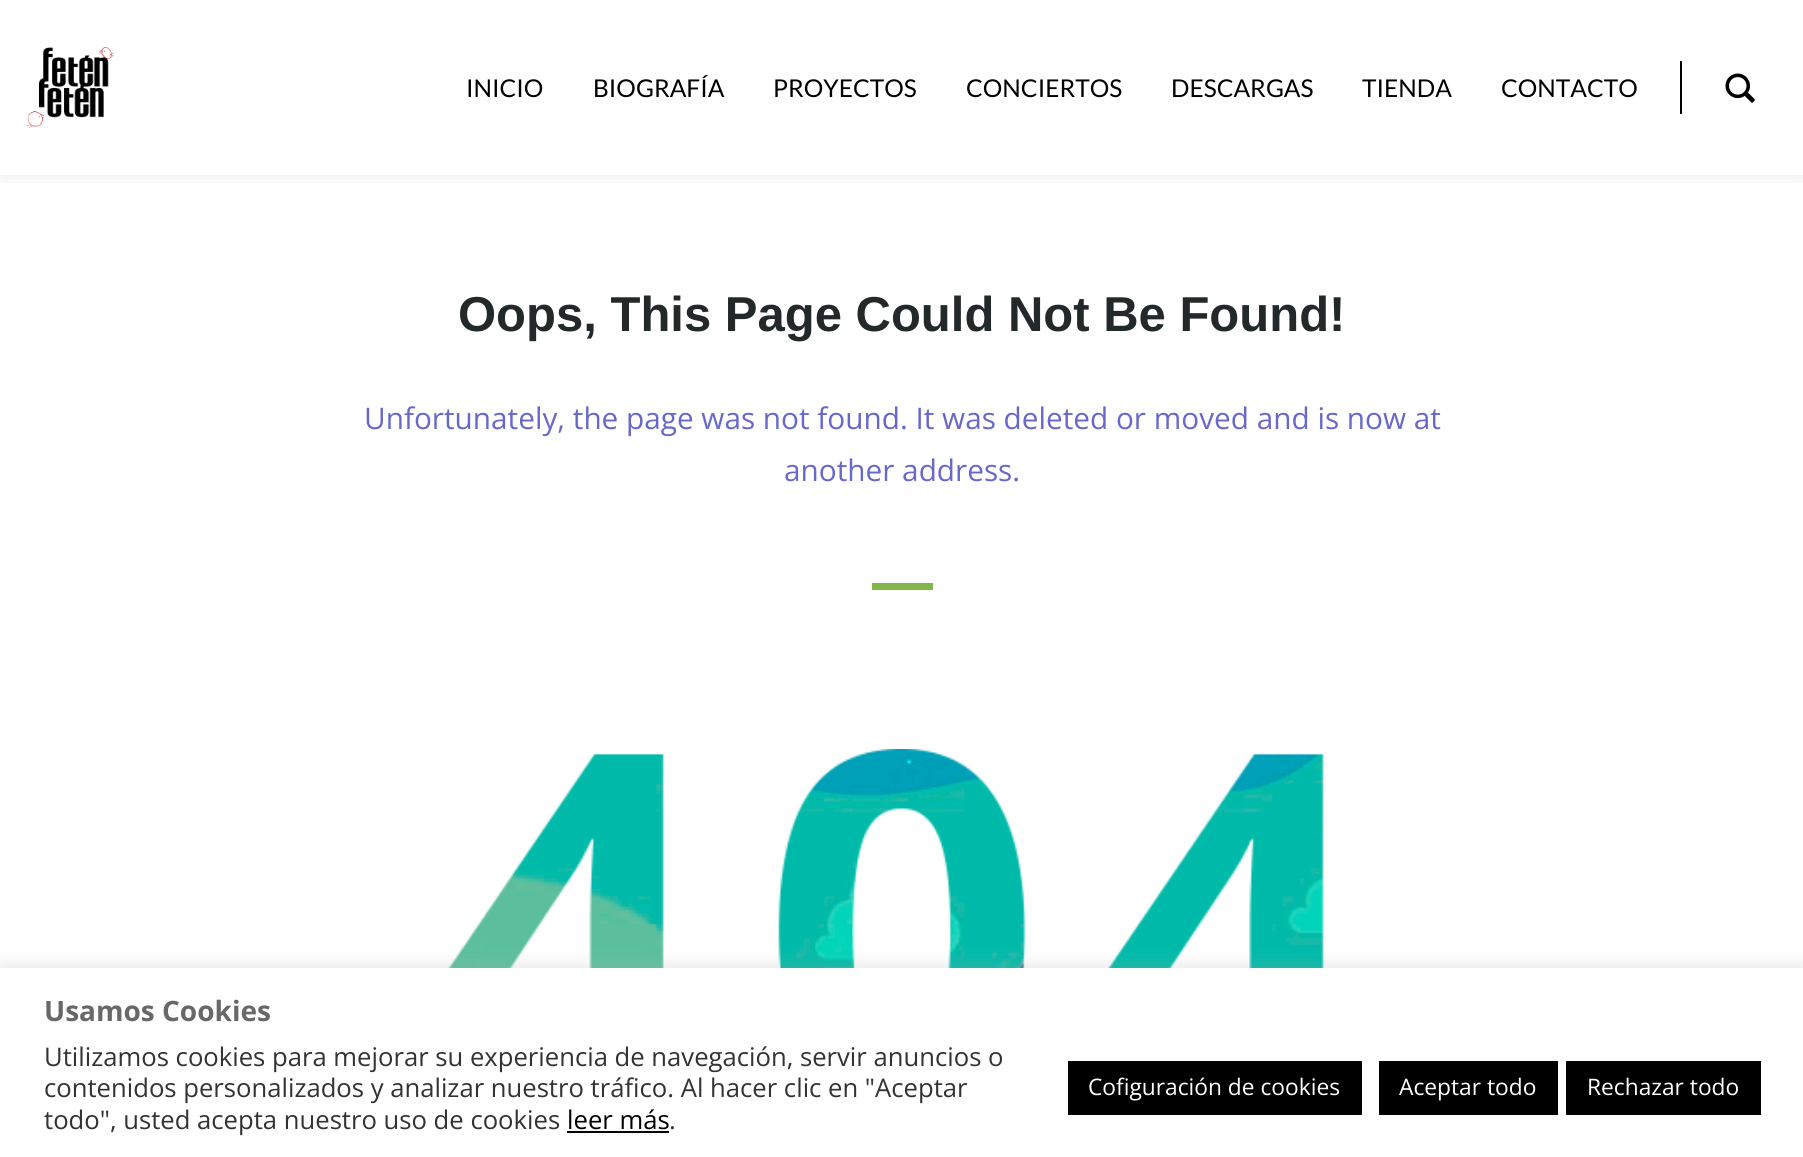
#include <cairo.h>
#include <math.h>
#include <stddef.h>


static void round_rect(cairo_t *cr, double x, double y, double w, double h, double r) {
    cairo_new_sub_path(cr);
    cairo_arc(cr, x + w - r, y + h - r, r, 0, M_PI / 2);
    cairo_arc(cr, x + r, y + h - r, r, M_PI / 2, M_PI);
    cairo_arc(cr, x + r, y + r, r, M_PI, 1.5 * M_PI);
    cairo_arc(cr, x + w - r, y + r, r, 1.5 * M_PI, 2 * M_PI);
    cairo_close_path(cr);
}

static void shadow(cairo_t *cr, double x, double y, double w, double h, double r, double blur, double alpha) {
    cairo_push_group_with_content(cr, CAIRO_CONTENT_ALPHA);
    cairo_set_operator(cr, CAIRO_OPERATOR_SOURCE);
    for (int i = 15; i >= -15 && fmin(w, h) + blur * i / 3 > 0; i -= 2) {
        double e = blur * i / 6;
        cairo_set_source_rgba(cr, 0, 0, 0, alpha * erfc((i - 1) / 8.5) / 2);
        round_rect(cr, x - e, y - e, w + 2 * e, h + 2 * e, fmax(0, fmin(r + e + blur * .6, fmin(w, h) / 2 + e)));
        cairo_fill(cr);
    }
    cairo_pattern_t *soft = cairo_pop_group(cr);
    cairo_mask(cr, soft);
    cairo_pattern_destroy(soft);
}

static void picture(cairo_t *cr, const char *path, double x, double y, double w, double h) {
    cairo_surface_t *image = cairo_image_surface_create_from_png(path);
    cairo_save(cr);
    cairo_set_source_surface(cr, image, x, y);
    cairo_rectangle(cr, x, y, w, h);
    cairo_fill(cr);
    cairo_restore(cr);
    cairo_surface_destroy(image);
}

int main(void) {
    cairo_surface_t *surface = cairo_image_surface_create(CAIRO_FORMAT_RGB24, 1803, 1157);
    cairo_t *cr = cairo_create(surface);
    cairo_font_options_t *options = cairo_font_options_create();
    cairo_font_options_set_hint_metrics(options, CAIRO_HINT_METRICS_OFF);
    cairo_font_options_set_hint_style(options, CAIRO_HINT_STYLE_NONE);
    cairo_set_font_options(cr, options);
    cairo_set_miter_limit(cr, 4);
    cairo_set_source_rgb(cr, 1, 1, 1);
    cairo_paint(cr);
    cairo_save(cr);
    cairo_rectangle(cr, 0, 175, 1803, 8);
    cairo_clip(cr);
    cairo_set_source_rgb(cr, 0, 0, 0);
    shadow(cr, 0, 0, 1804, 175, 0, 9, 0.1);
    cairo_restore(cr);
    picture(cr, "img1.png", 26, 47, 88, 81);
    cairo_select_font_face(cr, "Lato", CAIRO_FONT_SLANT_NORMAL, CAIRO_FONT_WEIGHT_NORMAL);
    cairo_set_font_size(cr, 24.5);
    cairo_set_source_rgb(cr, 0, 0, 0);
    cairo_move_to(cr, 466, 97);
    cairo_show_text(cr, "INICIO");
    cairo_move_to(cr, 593, 97);
    cairo_show_text(cr, "BIOGRAFÍA");
    cairo_move_to(cr, 773, 97);
    cairo_show_text(cr, "PROYECTOS");
    cairo_move_to(cr, 966, 97);
    cairo_show_text(cr, "CONCIERTOS");
    cairo_move_to(cr, 1171, 97);
    cairo_show_text(cr, "DESCARGAS");
    cairo_move_to(cr, 1362, 97);
    cairo_show_text(cr, "TIENDA");
    cairo_move_to(cr, 1501, 97);
    cairo_show_text(cr, "CONTACTO");
    cairo_rectangle(cr, 1680, 61, 2, 53);
    cairo_fill(cr);
    picture(cr, "img2.png", 1725, 73, 30, 30);
    cairo_select_font_face(cr, "Liberation Sans", CAIRO_FONT_SLANT_NORMAL, CAIRO_FONT_WEIGHT_BOLD);
    cairo_set_font_size(cr, 49);
    cairo_set_source_rgb(cr, 0.137, 0.157, 0.161);
    cairo_move_to(cr, 458, 331);
    cairo_show_text(cr, "Oops, This Page Could Not Be Found!");
    cairo_select_font_face(cr, "Open Sans", CAIRO_FONT_SLANT_NORMAL, CAIRO_FONT_WEIGHT_NORMAL);
    cairo_set_font_size(cr, 29.75);
    cairo_set_source_rgb(cr, 0.408, 0.408, 0.8);
    cairo_move_to(cr, 364, 429);
    cairo_show_text(cr, "Unfortunately, the page was not found. It was deleted or moved and is now at");
    cairo_move_to(cr, 784, 481);
    cairo_show_text(cr, "another address.");
    cairo_set_source_rgb(cr, 0.514, 0.71, 0.282);
    cairo_rectangle(cr, 872, 583, 61, 7);
    cairo_fill(cr);
    picture(cr, "img3.png", 447, 749, 877, 219);
    cairo_set_source_rgb(cr, 0.675, 0.671, 0.671);
    shadow(cr, 0, 966, 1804, 191, 0, 9, 0.3);
    cairo_set_source_rgb(cr, 1, 1, 1);
    cairo_rectangle(cr, 0, 968, 1803, 189);
    cairo_fill(cr);
    cairo_select_font_face(cr, "Open Sans", CAIRO_FONT_SLANT_NORMAL, CAIRO_FONT_WEIGHT_BOLD);
    cairo_set_font_size(cr, 28);
    cairo_set_source_rgb(cr, 0.408, 0.408, 0.408);
    cairo_move_to(cr, 44, 1021);
    cairo_show_text(cr, "Usamos Cookies");
    cairo_select_font_face(cr, "Open Sans", CAIRO_FONT_SLANT_NORMAL, CAIRO_FONT_WEIGHT_NORMAL);
    cairo_set_font_size(cr, 25.65);
    cairo_set_source_rgb(cr, 0.2, 0.2, 0.2);
    cairo_move_to(cr, 44, 1066);
    cairo_show_text(cr, "Utilizamos cookies para mejorar su experiencia de navegación, servir anuncios o");
    cairo_move_to(cr, 44, 1097);
    cairo_show_text(cr, "contenidos personalizados y analizar nuestro tráfico. Al hacer clic en \"Aceptar");
    cairo_move_to(cr, 44, 1129);
    cairo_show_text(cr, "todo\", usted acepta nuestro uso de cookies");
    cairo_set_source_rgb(cr, 0, 0, 0);
    cairo_move_to(cr, 567, 1129);
    cairo_show_text(cr, "leer más");
    cairo_rectangle(cr, 567, 1131, 102, 2);
    cairo_fill(cr);
    cairo_set_source_rgb(cr, 0.2, 0.2, 0.2);
    cairo_move_to(cr, 669, 1129);
    cairo_show_text(cr, ".");
    cairo_set_source_rgb(cr, 0, 0, 0);
    cairo_rectangle(cr, 1068, 1061, 294, 54);
    cairo_fill(cr);
    cairo_set_font_size(cr, 22.75);
    cairo_set_source_rgb(cr, 1, 1, 1);
    cairo_move_to(cr, 1088, 1095);
    cairo_show_text(cr, "Cofiguración de cookies");
    cairo_set_source_rgb(cr, 0, 0, 0);
    cairo_rectangle(cr, 1379, 1061, 179, 54);
    cairo_fill(cr);
    cairo_set_source_rgb(cr, 1, 1, 1);
    cairo_move_to(cr, 1399, 1095);
    cairo_show_text(cr, "Aceptar todo");
    cairo_set_source_rgb(cr, 0, 0, 0);
    cairo_rectangle(cr, 1566, 1061, 195, 54);
    cairo_fill(cr);
    cairo_set_source_rgb(cr, 1, 1, 1);
    cairo_move_to(cr, 1587, 1095);
    cairo_show_text(cr, "Rechazar todo");
    cairo_surface_write_to_png(surface, "page.png");
    cairo_font_options_destroy(options);
    cairo_destroy(cr);
    cairo_surface_destroy(surface);
    return 0;
}
